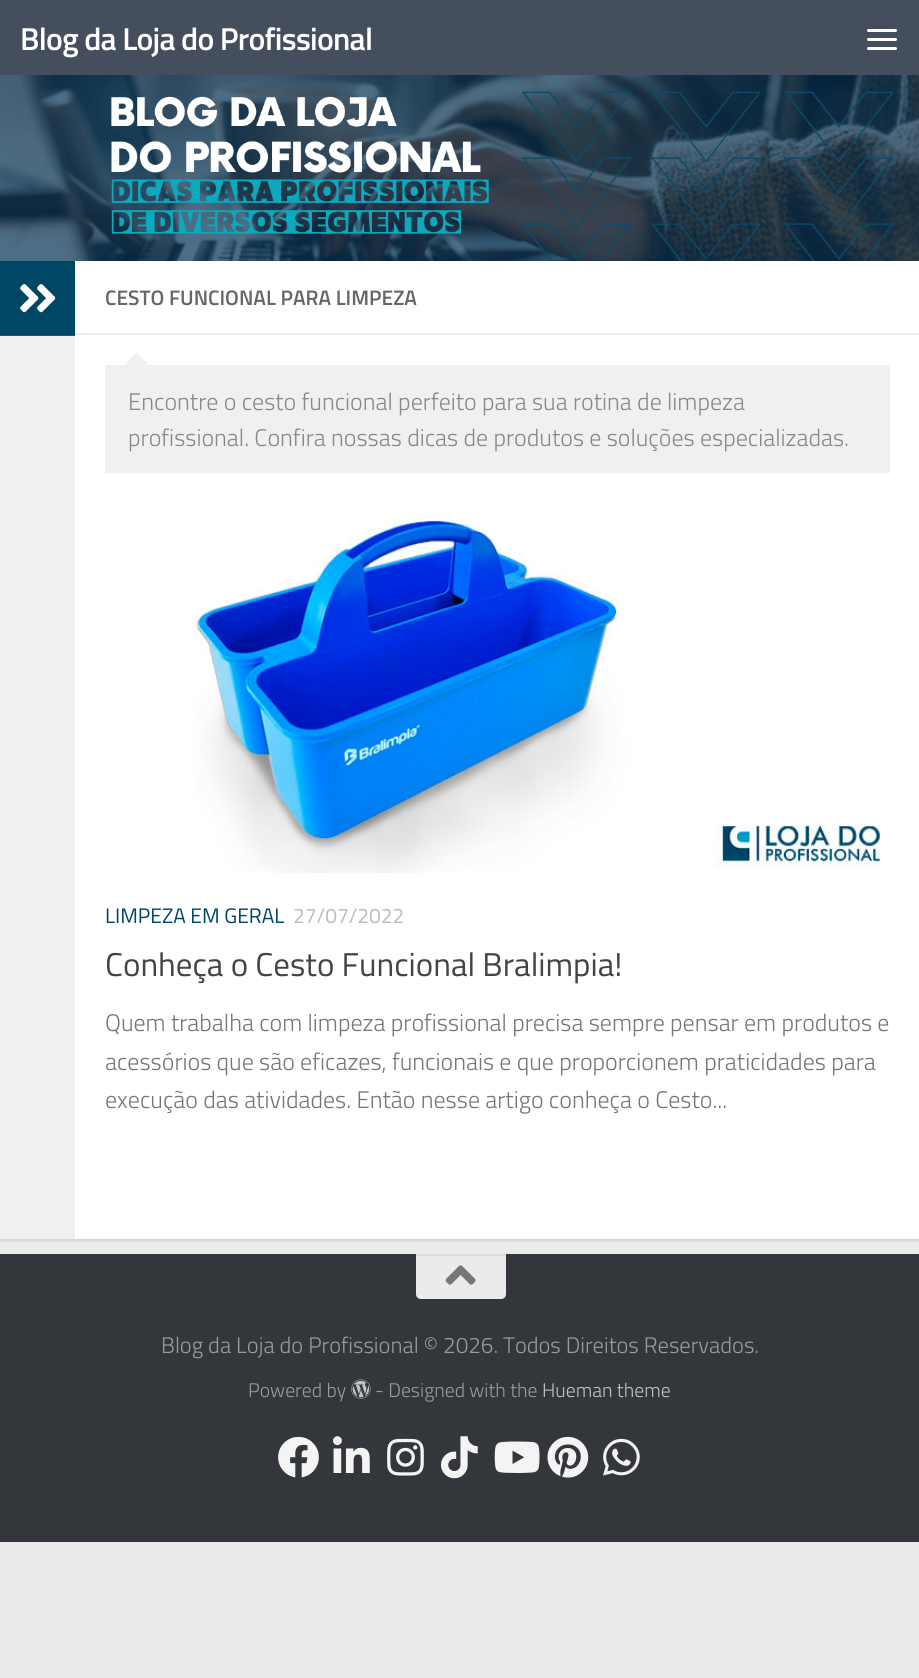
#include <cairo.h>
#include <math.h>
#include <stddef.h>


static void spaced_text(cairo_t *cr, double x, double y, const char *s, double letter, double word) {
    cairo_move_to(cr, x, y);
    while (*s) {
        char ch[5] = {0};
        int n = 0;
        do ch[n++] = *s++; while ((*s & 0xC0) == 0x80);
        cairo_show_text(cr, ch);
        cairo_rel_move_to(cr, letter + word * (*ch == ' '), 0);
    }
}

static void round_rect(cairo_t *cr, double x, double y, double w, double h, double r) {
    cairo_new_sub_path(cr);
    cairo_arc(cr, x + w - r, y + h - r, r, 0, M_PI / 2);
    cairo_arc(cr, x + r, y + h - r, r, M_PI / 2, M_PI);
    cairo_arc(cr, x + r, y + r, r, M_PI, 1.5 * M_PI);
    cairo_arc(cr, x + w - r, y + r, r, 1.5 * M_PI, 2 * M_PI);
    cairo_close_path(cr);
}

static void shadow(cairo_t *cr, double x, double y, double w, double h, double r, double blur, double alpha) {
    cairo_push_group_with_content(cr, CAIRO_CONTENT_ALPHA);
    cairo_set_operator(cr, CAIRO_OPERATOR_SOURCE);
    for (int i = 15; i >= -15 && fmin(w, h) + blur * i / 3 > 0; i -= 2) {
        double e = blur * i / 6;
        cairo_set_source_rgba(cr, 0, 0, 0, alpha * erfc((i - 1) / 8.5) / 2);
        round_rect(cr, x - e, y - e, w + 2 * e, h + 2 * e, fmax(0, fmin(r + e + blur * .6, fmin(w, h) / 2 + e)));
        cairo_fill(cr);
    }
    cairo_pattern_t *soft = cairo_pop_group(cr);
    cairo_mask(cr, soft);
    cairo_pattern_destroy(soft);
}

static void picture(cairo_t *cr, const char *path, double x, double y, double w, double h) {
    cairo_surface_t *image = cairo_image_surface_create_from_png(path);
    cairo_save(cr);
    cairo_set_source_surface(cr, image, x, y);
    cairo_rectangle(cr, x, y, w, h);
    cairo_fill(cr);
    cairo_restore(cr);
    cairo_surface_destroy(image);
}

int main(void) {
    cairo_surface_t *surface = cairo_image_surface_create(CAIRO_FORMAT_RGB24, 919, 1678);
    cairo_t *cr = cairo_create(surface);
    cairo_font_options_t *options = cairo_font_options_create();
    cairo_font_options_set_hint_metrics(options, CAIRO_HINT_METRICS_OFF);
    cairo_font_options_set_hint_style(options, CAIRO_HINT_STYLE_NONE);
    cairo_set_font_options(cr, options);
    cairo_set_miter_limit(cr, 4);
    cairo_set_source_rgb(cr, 0.918, 0.918, 0.918);
    cairo_paint(cr);
    cairo_set_source_rgb(cr, 0.271, 0.306, 0.361);
    cairo_rectangle(cr, 0, 0, 919, 75);
    cairo_fill(cr);
    cairo_select_font_face(cr, "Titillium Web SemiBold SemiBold", CAIRO_FONT_SLANT_NORMAL, CAIRO_FONT_WEIGHT_NORMAL);
    cairo_set_font_size(cr, 31.75);
    cairo_set_source_rgb(cr, 1, 1, 1);
    spaced_text(cr, 20, 50, "Blog da Loja do Profissional", -0.75, 0);
    round_rect(cr, 867, 29, 30, 3, 1.5);
    cairo_fill(cr);
    round_rect(cr, 867, 38, 30, 3, 1.5);
    cairo_fill(cr);
    round_rect(cr, 867, 47, 30, 3, 1.5);
    cairo_fill(cr);
    cairo_set_source_rgb(cr, 0, 0, 0);
    shadow(cr, 0, 263, 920, 978, 0, 1, 0.1);
    picture(cr, "img1.png", 0, 75, 919, 186);
    cairo_set_source_rgb(cr, 1, 1, 1);
    cairo_rectangle(cr, 75, 261, 844, 978);
    cairo_fill(cr);
    cairo_set_source_rgb(cr, 0.941, 0.941, 0.941);
    cairo_rectangle(cr, 0, 337, 75, 902);
    cairo_fill(cr);
    cairo_set_source_rgb(cr, 0.949, 0.949, 0.949);
    cairo_rectangle(cr, 0, 336, 75, 1);
    cairo_fill(cr);
    cairo_set_source_rgb(cr, 0, 0.275, 0.396);
    cairo_rectangle(cr, 0, 261, 75, 74);
    cairo_fill(cr);
    cairo_set_source_rgb(cr, 0.102, 0.349, 0.455);
    cairo_rectangle(cr, 0, 335, 75, 1);
    cairo_fill(cr);
    picture(cr, "img2.png", 20, 284, 36, 29);
    cairo_set_source_rgb(cr, 0.933, 0.933, 0.933);
    cairo_rectangle(cr, 75, 333, 844, 2);
    cairo_fill(cr);
    cairo_set_font_size(cr, 21);
    cairo_set_source_rgb(cr, 0.4, 0.4, 0.4);
    cairo_move_to(cr, 105, 305);
    cairo_show_text(cr, "CESTO FUNCIONAL PARA LIMPEZA");
    cairo_set_source_rgb(cr, 0.941, 0.941, 0.941);
    cairo_rectangle(cr, 105, 365, 785, 108);
    cairo_fill(cr);
    cairo_set_source_rgb(cr, 0.945, 0.945, 0.945);
    cairo_new_path(cr);
    cairo_move_to(cr, 148.5, 364.5);
    cairo_line_to(cr, 124.5, 364.5);
    cairo_line_to(cr, 136.5, 352.5);
    cairo_close_path(cr);
    cairo_fill(cr);
    cairo_new_path(cr);
    cairo_move_to(cr, 145.5, 366);
    cairo_line_to(cr, 127.5, 366);
    cairo_line_to(cr, 136.5, 357);
    cairo_close_path(cr);
    cairo_fill(cr);
    cairo_select_font_face(cr, "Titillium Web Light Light", CAIRO_FONT_SLANT_NORMAL, CAIRO_FONT_WEIGHT_NORMAL);
    cairo_set_font_size(cr, 24);
    cairo_set_source_rgb(cr, 0.533, 0.533, 0.533);
    cairo_move_to(cr, 128, 410);
    cairo_show_text(cr, "Encontre o cesto funcional perfeito para sua rotina de limpeza");
    cairo_move_to(cr, 128, 446);
    cairo_show_text(cr, "profissional. Confira nossas dicas de produtos e soluções especializadas.");
    picture(cr, "img3.png", 193, 520, 688, 353);
    cairo_select_font_face(cr, "Titillium Web", CAIRO_FONT_SLANT_NORMAL, CAIRO_FONT_WEIGHT_NORMAL);
    cairo_set_font_size(cr, 21);
    cairo_set_source_rgb(cr, 0, 0.275, 0.396);
    cairo_move_to(cr, 105, 923);
    cairo_show_text(cr, "LIMPEZA EM GERAL");
    cairo_set_source_rgb(cr, 0.733, 0.733, 0.733);
    cairo_move_to(cr, 293, 923);
    cairo_show_text(cr, "27/07/2022");
    cairo_set_font_size(cr, 33);
    cairo_set_source_rgb(cr, 0.267, 0.267, 0.267);
    cairo_move_to(cr, 105, 976);
    cairo_show_text(cr, "Conheça o Cesto Funcional Bralimpia!");
    cairo_select_font_face(cr, "Titillium Web Light Light", CAIRO_FONT_SLANT_NORMAL, CAIRO_FONT_WEIGHT_NORMAL);
    cairo_set_font_size(cr, 24);
    cairo_set_source_rgb(cr, 0.463, 0.463, 0.463);
    cairo_move_to(cr, 105, 1031);
    cairo_show_text(cr, "Quem trabalha com limpeza profissional precisa sempre pensar em produtos e");
    cairo_move_to(cr, 105, 1070);
    cairo_show_text(cr, "acessórios que são eficazes, funcionais e que proporcionem praticidades para");
    cairo_move_to(cr, 105, 1108);
    cairo_show_text(cr, "execução das atividades. Então nesse artigo conheça o Cesto...");
    cairo_set_source_rgb(cr, 0.2, 0.212, 0.231);
    cairo_rectangle(cr, 0, 1254, 919, 288);
    cairo_fill(cr);
    cairo_set_source_rgb(cr, 0.918, 0.918, 0.918);
    cairo_new_path(cr);
    cairo_move_to(cr, 416, 1254);
    cairo_line_to(cr, 506, 1254);
    cairo_line_to(cr, 506, 1294);
    cairo_curve_to(cr, 506, 1297, 504, 1299, 501, 1299);
    cairo_line_to(cr, 421, 1299);
    cairo_curve_to(cr, 418, 1299, 416, 1297, 416, 1294);
    cairo_close_path(cr);
    cairo_fill(cr);
    cairo_set_source_rgb(cr, 0.871, 0.871, 0.871);
    cairo_rectangle(cr, 416, 1254, 90, 2);
    cairo_fill(cr);
    picture(cr, "img4.png", 445, 1265, 31, 20);
    cairo_set_font_size(cr, 22.5);
    cairo_set_source_rgb(cr, 0.6, 0.608, 0.616);
    cairo_move_to(cr, 161, 1353);
    cairo_show_text(cr, "Blog da Loja do Profissional © 2026. Todos Direitos Reservados.");
    cairo_set_font_size(cr, 19.75);
    cairo_move_to(cr, 248, 1397);
    cairo_show_text(cr, "Powered by");
    picture(cr, "img5.png", 351, 1379, 20, 20);
    cairo_move_to(cr, 375, 1397);
    cairo_show_text(cr, "- Designed with the");
    cairo_set_source_rgb(cr, 0.761, 0.765, 0.769);
    cairo_move_to(cr, 542, 1397);
    cairo_show_text(cr, "Hueman theme");
    picture(cr, "img6.png", 278, 1436, 41, 42);
    picture(cr, "img7.png", 333, 1436, 37, 37);
    picture(cr, "img8.png", 387, 1438, 37, 38);
    picture(cr, "img9.png", 441, 1436, 37, 43);
    picture(cr, "img10.png", 494, 1441, 46, 32);
    picture(cr, "img11.png", 547, 1436, 42, 42);
    picture(cr, "img12.png", 603, 1438, 37, 38);
    cairo_surface_write_to_png(surface, "page.png");
    cairo_font_options_destroy(options);
    cairo_destroy(cr);
    cairo_surface_destroy(surface);
    return 0;
}
